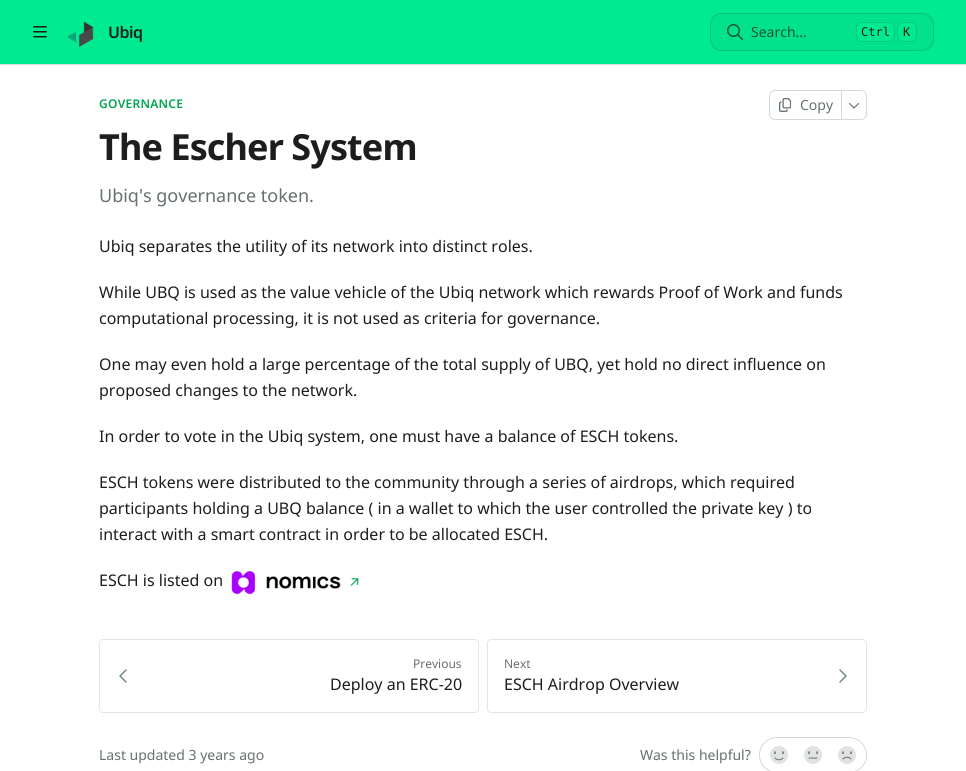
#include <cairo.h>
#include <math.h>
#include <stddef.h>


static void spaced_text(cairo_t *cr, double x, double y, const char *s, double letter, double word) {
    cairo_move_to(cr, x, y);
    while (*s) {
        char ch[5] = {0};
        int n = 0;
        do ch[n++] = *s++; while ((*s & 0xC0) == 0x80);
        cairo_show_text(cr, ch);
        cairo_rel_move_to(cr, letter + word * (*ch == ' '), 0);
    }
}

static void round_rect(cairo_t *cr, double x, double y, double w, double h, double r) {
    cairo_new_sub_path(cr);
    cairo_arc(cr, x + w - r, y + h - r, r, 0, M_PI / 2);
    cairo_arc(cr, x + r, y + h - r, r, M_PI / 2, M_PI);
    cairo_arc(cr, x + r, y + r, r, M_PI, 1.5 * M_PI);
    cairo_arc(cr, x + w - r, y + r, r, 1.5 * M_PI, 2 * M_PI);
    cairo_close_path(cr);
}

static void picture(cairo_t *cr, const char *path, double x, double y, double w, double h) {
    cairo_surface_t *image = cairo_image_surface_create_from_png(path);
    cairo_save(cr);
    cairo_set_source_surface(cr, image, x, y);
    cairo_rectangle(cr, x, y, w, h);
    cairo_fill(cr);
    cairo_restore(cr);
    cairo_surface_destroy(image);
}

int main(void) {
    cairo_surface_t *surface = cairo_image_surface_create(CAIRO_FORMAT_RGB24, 966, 771);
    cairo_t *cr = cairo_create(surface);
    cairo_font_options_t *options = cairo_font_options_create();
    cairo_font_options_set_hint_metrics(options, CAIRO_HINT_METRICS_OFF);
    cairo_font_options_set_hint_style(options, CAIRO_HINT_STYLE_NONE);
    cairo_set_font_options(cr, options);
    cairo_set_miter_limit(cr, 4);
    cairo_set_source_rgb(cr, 1, 1, 1);
    cairo_paint(cr);
    cairo_set_source_rgb(cr, 0.863, 0.863, 0.863);
    cairo_rectangle(cr, 0, 64, 966, 1);
    cairo_fill(cr);
    cairo_set_source_rgb(cr, 0, 0.918, 0.565);
    cairo_rectangle(cr, 0, 0, 966, 64);
    cairo_fill(cr);
    picture(cr, "img1.png", 33, 26, 14, 12);
    picture(cr, "img2.png", 67, 21, 27, 26);
    cairo_select_font_face(cr, "Noto Sans SemiBold", CAIRO_FONT_SLANT_NORMAL, CAIRO_FONT_WEIGHT_NORMAL);
    cairo_set_font_size(cr, 16);
    cairo_set_source_rgb(cr, 0.11, 0.118, 0.11);
    spaced_text(cr, 108, 38, "Ubiq", -0.5, 0);
    cairo_set_source_rgb(cr, 0.004, 0.886, 0.545);
    round_rect(cr, 710, 13, 224, 38, 12);
    cairo_fill(cr);
    round_rect(cr, 710.5, 13.5, 223, 37, 11.5);
    cairo_set_source_rgba(cr, 0.114, 0.114, 0.114, 0.16);
    cairo_set_line_width(cr, 1);
    cairo_stroke(cr);
    picture(cr, "img3.png", 727, 24, 16, 16);
    cairo_select_font_face(cr, "Noto Sans", CAIRO_FONT_SLANT_NORMAL, CAIRO_FONT_WEIGHT_NORMAL);
    cairo_set_font_size(cr, 14);
    cairo_set_source_rgb(cr, 0.082, 0.329, 0.235);
    cairo_move_to(cr, 751, 37);
    cairo_show_text(cr, "Search…");
    cairo_set_source_rgb(cr, 0, 0.918, 0.565);
    round_rect(cr, 856.5, 22.5, 38, 19, 5.5);
    cairo_fill_preserve(cr);
    cairo_set_source_rgb(cr, 0.02, 0.788, 0.49);
    cairo_stroke(cr);
    cairo_select_font_face(cr, "DejaVu Sans Mono", CAIRO_FONT_SLANT_NORMAL, CAIRO_FONT_WEIGHT_NORMAL);
    cairo_set_font_size(cr, 12);
    cairo_set_source_rgb(cr, 0.11, 0.118, 0.11);
    cairo_move_to(cr, 861, 36);
    cairo_show_text(cr, "Ctrl");
    cairo_set_source_rgb(cr, 0, 0.918, 0.565);
    round_rect(cr, 897.5, 22.5, 19, 19, 5.5);
    cairo_fill_preserve(cr);
    cairo_set_source_rgb(cr, 0.02, 0.788, 0.49);
    cairo_stroke(cr);
    cairo_set_source_rgb(cr, 0.11, 0.118, 0.11);
    cairo_move_to(cr, 903, 36);
    cairo_show_text(cr, "K");
    cairo_select_font_face(cr, "Noto Sans SemiBold", CAIRO_FONT_SLANT_NORMAL, CAIRO_FONT_WEIGHT_NORMAL);
    cairo_set_source_rgb(cr, 0, 0.647, 0.314);
    spaced_text(cr, 99, 108, "GOVERNANCE", 0.25, 0);
    cairo_new_path(cr);
    cairo_move_to(cr, 775, 90.5);
    cairo_line_to(cr, 841.5, 90.5);
    cairo_line_to(cr, 841.5, 119.5);
    cairo_line_to(cr, 775, 119.5);
    cairo_curve_to(cr, 772, 119.5, 769.5, 117, 769.5, 114);
    cairo_line_to(cr, 769.5, 96);
    cairo_curve_to(cr, 769.5, 93, 772, 90.5, 775, 90.5);
    cairo_close_path(cr);
    cairo_set_source_rgb(cr, 0.827, 0.859, 0.839);
    cairo_stroke(cr);
    picture(cr, "img4.png", 779, 98, 12, 14);
    cairo_select_font_face(cr, "Noto Sans", CAIRO_FONT_SLANT_NORMAL, CAIRO_FONT_WEIGHT_NORMAL);
    cairo_set_font_size(cr, 14);
    cairo_set_source_rgb(cr, 0.404, 0.443, 0.42);
    cairo_move_to(cr, 800, 110);
    cairo_show_text(cr, "Copy");
    cairo_set_source_rgb(cr, 0.827, 0.859, 0.839);
    cairo_set_fill_rule(cr, CAIRO_FILL_RULE_EVEN_ODD);
    cairo_new_path(cr);
    cairo_move_to(cr, 842, 90);
    cairo_line_to(cr, 861, 90);
    cairo_curve_to(cr, 864.5, 90, 867, 92.5, 867, 96);
    cairo_line_to(cr, 867, 114);
    cairo_curve_to(cr, 867, 117.5, 864.5, 120, 861, 120);
    cairo_line_to(cr, 842, 120);
    cairo_close_path(cr);
    cairo_move_to(cr, 842, 91);
    cairo_line_to(cr, 861, 91);
    cairo_curve_to(cr, 864, 91, 866, 93, 866, 96);
    cairo_line_to(cr, 866, 114);
    cairo_curve_to(cr, 866, 117, 864, 119, 861, 119);
    cairo_line_to(cr, 842, 119);
    cairo_close_path(cr);
    cairo_fill(cr);
    picture(cr, "img5.png", 849, 103, 10, 6);
    cairo_select_font_face(cr, "Noto Sans", CAIRO_FONT_SLANT_NORMAL, CAIRO_FONT_WEIGHT_BOLD);
    cairo_set_font_size(cr, 36);
    cairo_set_source_rgb(cr, 0.11, 0.118, 0.11);
    spaced_text(cr, 99, 160, "The Escher System", -0.9, 0);
    cairo_select_font_face(cr, "Noto Sans", CAIRO_FONT_SLANT_NORMAL, CAIRO_FONT_WEIGHT_NORMAL);
    cairo_set_font_size(cr, 18);
    cairo_set_source_rgb(cr, 0.404, 0.443, 0.42);
    cairo_move_to(cr, 99, 202);
    cairo_show_text(cr, "Ubiq's governance token.");
    cairo_set_font_size(cr, 16);
    cairo_set_source_rgb(cr, 0.11, 0.118, 0.11);
    cairo_move_to(cr, 99, 252);
    cairo_show_text(cr, "Ubiq separates the utility of its network into distinct roles.");
    cairo_move_to(cr, 99, 298);
    cairo_show_text(cr, "While UBQ is used as the value vehicle of the Ubiq network which rewards Proof of Work and funds");
    cairo_move_to(cr, 99, 324);
    cairo_show_text(cr, "computational processing, it is not used as criteria for governance.");
    cairo_move_to(cr, 99, 370);
    cairo_show_text(cr, "One may even hold a large percentage of the total supply of UBQ, yet hold no direct influence on");
    cairo_move_to(cr, 99, 396);
    cairo_show_text(cr, "proposed changes to the network.");
    cairo_move_to(cr, 99, 442);
    cairo_show_text(cr, "In order to vote in the Ubiq system, one must have a balance of ESCH tokens.");
    cairo_move_to(cr, 99, 488);
    cairo_show_text(cr, "ESCH tokens were distributed to the community through a series of airdrops, which required");
    cairo_move_to(cr, 99, 514);
    cairo_show_text(cr, "participants holding a UBQ balance ( in a wallet to which the user controlled the private key ) to");
    cairo_move_to(cr, 99, 540);
    cairo_show_text(cr, "interact with a smart contract in order to be allocated ESCH.");
    cairo_move_to(cr, 99, 586);
    cairo_show_text(cr, "ESCH is listed on");
    picture(cr, "img6.png", 231, 571, 110, 24);
    picture(cr, "img7.png", 350, 578, 9, 8);
    round_rect(cr, 99.5, 639.5, 379, 73, 3.5);
    cairo_set_source_rgb(cr, 0.882, 0.91, 0.89);
    cairo_stroke(cr);
    picture(cr, "img8.png", 119, 669, 8, 14);
    cairo_set_font_size(cr, 12);
    cairo_set_source_rgb(cr, 0.404, 0.443, 0.42);
    cairo_move_to(cr, 413, 668);
    cairo_show_text(cr, "Previous");
    cairo_set_font_size(cr, 16);
    cairo_set_source_rgb(cr, 0.11, 0.118, 0.11);
    cairo_move_to(cr, 330, 690);
    cairo_show_text(cr, "Deploy an ERC-20");
    round_rect(cr, 487.5, 639.5, 379, 73, 3.5);
    cairo_set_source_rgb(cr, 0.882, 0.91, 0.89);
    cairo_stroke(cr);
    cairo_set_font_size(cr, 12);
    cairo_set_source_rgb(cr, 0.404, 0.443, 0.42);
    cairo_move_to(cr, 504, 668);
    cairo_show_text(cr, "Next");
    cairo_set_font_size(cr, 16);
    cairo_set_source_rgb(cr, 0.11, 0.118, 0.11);
    cairo_move_to(cr, 504, 690);
    cairo_show_text(cr, "ESCH Airdrop Overview");
    picture(cr, "img9.png", 839, 669, 8, 14);
    cairo_set_font_size(cr, 14);
    cairo_set_source_rgb(cr, 0.404, 0.443, 0.42);
    cairo_move_to(cr, 99, 760);
    cairo_show_text(cr, "Last updated 3 years ago");
    cairo_move_to(cr, 640, 760);
    cairo_show_text(cr, "Was this helpful?");
    round_rect(cr, 759.5, 737.5, 107, 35, 17.5);
    cairo_set_source_rgb(cr, 0.827, 0.859, 0.839);
    cairo_stroke(cr);
    picture(cr, "img10.png", 770, 746, 18, 18);
    picture(cr, "img11.png", 804, 746, 18, 18);
    picture(cr, "img12.png", 838, 746, 18, 18);
    cairo_surface_write_to_png(surface, "page.png");
    cairo_font_options_destroy(options);
    cairo_destroy(cr);
    cairo_surface_destroy(surface);
    return 0;
}
